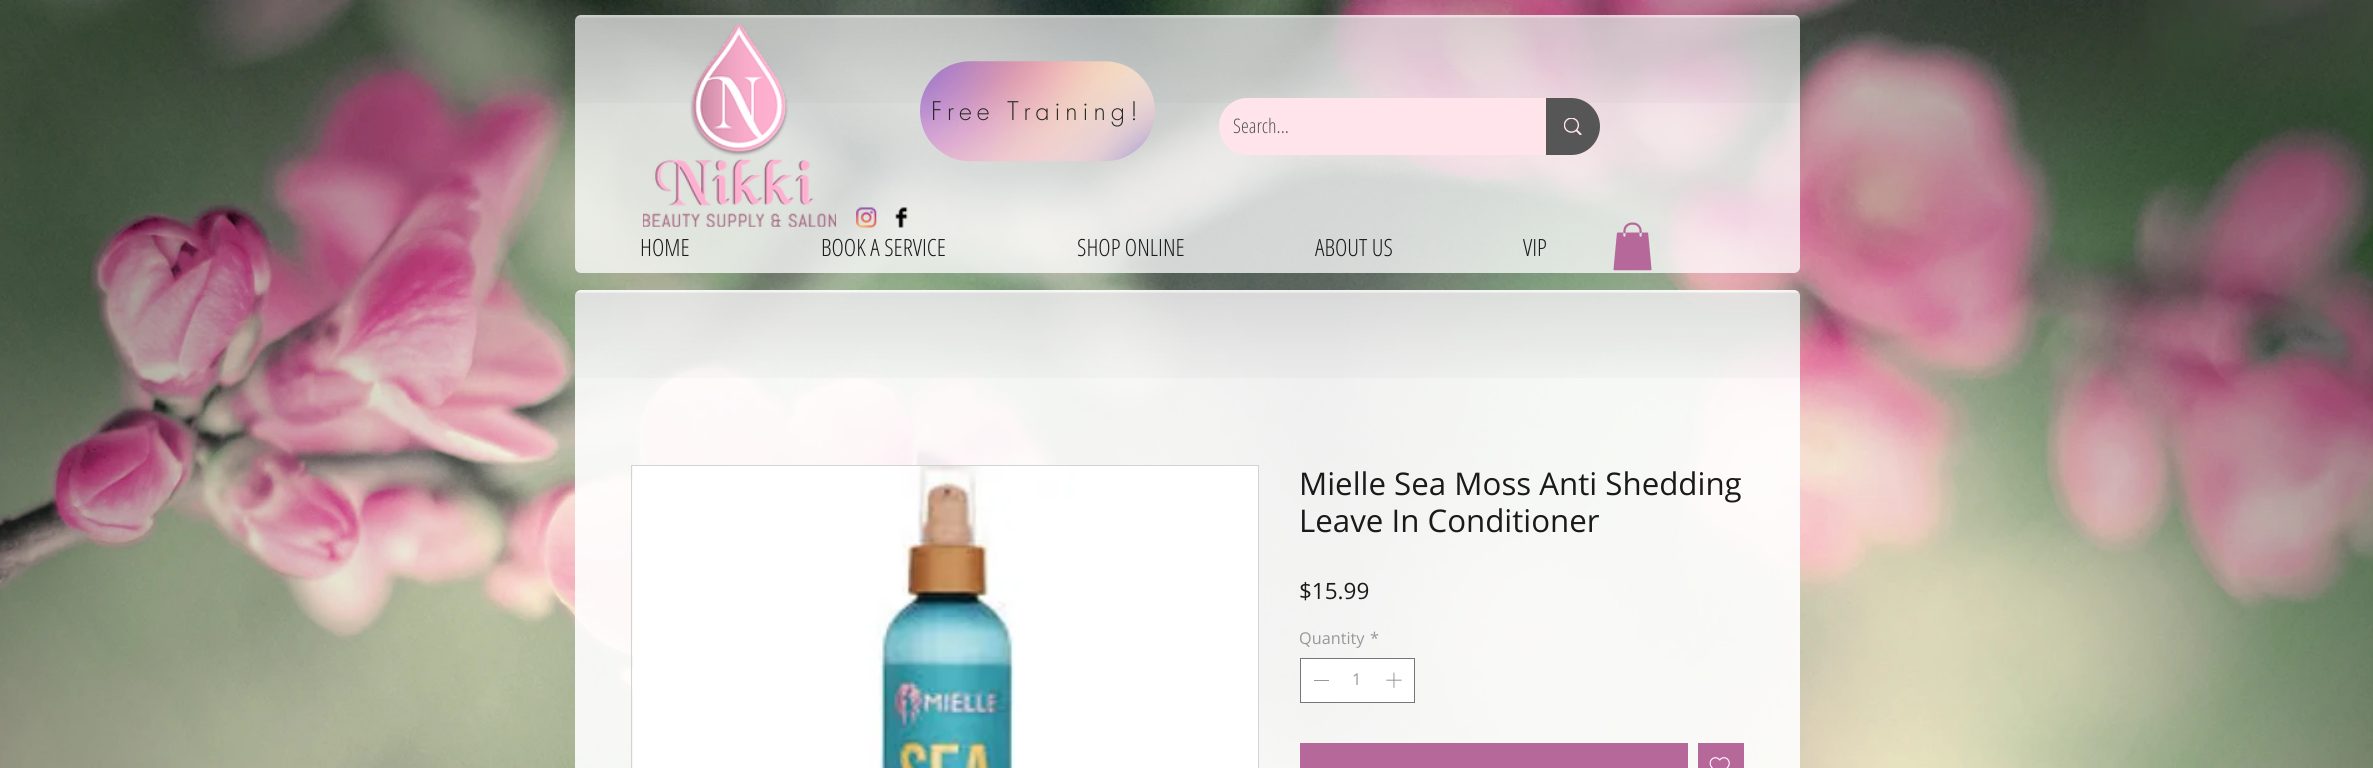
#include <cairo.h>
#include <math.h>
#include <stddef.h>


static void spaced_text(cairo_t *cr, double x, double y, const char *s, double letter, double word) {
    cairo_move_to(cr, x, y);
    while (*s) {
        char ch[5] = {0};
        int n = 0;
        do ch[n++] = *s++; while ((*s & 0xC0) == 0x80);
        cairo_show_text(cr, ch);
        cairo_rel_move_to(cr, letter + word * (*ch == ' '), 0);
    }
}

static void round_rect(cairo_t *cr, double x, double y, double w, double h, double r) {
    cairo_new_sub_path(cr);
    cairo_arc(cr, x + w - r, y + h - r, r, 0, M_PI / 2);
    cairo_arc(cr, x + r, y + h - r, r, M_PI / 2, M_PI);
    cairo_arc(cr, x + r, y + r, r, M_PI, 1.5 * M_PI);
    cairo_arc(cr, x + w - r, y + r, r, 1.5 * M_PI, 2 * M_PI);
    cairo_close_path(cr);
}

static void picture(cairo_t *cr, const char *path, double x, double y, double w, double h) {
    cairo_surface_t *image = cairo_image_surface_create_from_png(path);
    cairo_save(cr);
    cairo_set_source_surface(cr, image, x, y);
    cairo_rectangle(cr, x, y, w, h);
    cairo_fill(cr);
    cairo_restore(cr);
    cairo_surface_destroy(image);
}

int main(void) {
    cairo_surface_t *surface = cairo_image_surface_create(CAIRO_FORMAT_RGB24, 2373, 768);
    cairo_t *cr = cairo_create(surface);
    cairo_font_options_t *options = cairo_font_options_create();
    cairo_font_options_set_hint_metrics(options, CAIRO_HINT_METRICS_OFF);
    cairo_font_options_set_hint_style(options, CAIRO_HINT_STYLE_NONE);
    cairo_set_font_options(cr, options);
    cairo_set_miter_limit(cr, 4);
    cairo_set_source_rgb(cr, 1, 1, 1);
    cairo_paint(cr);
    picture(cr, "img1.png", 0, 0, 2373, 768);
    cairo_set_source_rgba(cr, 1, 1, 1, 0.75);
    round_rect(cr, 575, 15, 1225, 258, 6);
    cairo_fill(cr);
    picture(cr, "img2.png", 575, 17, 1225, 86);
    picture(cr, "img3.png", 643, 25, 193, 202);
    picture(cr, "img4.png", 920, 61, 235, 101);
    cairo_select_font_face(cr, "futura Light", CAIRO_FONT_SLANT_NORMAL, CAIRO_FONT_WEIGHT_NORMAL);
    cairo_set_font_size(cr, 25);
    cairo_set_source_rgb(cr, 0.157, 0.149, 0.149);
    spaced_text(cr, 931, 120, "Free Training!", 5, 0);
    cairo_set_source_rgb(cr, 1, 0.894, 0.925);
    round_rect(cr, 1219, 98, 381, 57, 28.5);
    cairo_fill(cr);
    cairo_select_font_face(cr, "Open Sans Condensed Light", CAIRO_FONT_SLANT_NORMAL, CAIRO_FONT_WEIGHT_NORMAL);
    cairo_set_font_size(cr, 20);
    cairo_set_source_rgb(cr, 0.337, 0.337, 0.337);
    cairo_move_to(cr, 1233, 133);
    cairo_show_text(cr, "Search...");
    cairo_new_path(cr);
    cairo_move_to(cr, 1546, 98);
    cairo_line_to(cr, 1571.5, 98);
    cairo_curve_to(cr, 1587, 98, 1600, 111, 1600, 126.5);
    cairo_curve_to(cr, 1600, 142, 1587, 155, 1571.5, 155);
    cairo_line_to(cr, 1546, 155);
    cairo_close_path(cr);
    cairo_fill(cr);
    picture(cr, "img5.png", 1564, 118, 18, 17);
    picture(cr, "img6.png", 856, 207, 21, 21);
    picture(cr, "img7.png", 895, 207, 13, 21);
    cairo_set_font_size(cr, 23.75);
    cairo_set_source_rgb(cr, 0.102, 0.102, 0.102);
    cairo_move_to(cr, 640, 256);
    cairo_show_text(cr, "HOME");
    cairo_move_to(cr, 821, 256);
    cairo_show_text(cr, "BOOK A SERVICE");
    cairo_move_to(cr, 1077, 256);
    cairo_show_text(cr, "SHOP ONLINE");
    cairo_move_to(cr, 1315, 256);
    cairo_show_text(cr, "ABOUT US");
    cairo_move_to(cr, 1523, 256);
    cairo_show_text(cr, "VIP");
    picture(cr, "img8.png", 1613, 222, 39, 49);
    cairo_set_source_rgba(cr, 1, 1, 1, 0.9);
    round_rect(cr, 575, 290, 1225, 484, 6);
    cairo_fill(cr);
    picture(cr, "img9.png", 575, 292, 1225, 86);
    cairo_rectangle(cr, 631.5, 465.5, 627, 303);
    cairo_set_source_rgb(cr, 0.831, 0.827, 0.827);
    cairo_set_line_width(cr, 1);
    cairo_stroke(cr);
    picture(cr, "img10.png", 633, 466, 625, 302);
    cairo_select_font_face(cr, "Open Sans", CAIRO_FONT_SLANT_NORMAL, CAIRO_FONT_WEIGHT_NORMAL);
    cairo_set_font_size(cr, 31.25);
    cairo_set_source_rgb(cr, 0.102, 0.102, 0.102);
    cairo_move_to(cr, 1299, 495);
    cairo_show_text(cr, "Mielle Sea Moss Anti Shedding");
    cairo_move_to(cr, 1299, 532);
    cairo_show_text(cr, "Leave In Conditioner");
    cairo_set_font_size(cr, 22.5);
    cairo_move_to(cr, 1299, 599);
    cairo_show_text(cr, "$15.99");
    cairo_set_font_size(cr, 16.25);
    cairo_set_source_rgb(cr, 0.6, 0.592, 0.592);
    cairo_move_to(cr, 1299, 644);
    cairo_show_text(cr, "Quantity");
    cairo_move_to(cr, 1370, 644);
    cairo_show_text(cr, "*");
    cairo_set_source_rgb(cr, 1, 1, 1);
    cairo_rectangle(cr, 1300.5, 658.5, 114, 44);
    cairo_fill_preserve(cr);
    cairo_set_source_rgb(cr, 0.463, 0.463, 0.463);
    cairo_stroke(cr);
    cairo_set_source_rgb(cr, 0.6, 0.592, 0.592);
    cairo_rectangle(cr, 1314, 680, 15, 1);
    cairo_fill(cr);
    cairo_move_to(cr, 1352, 685);
    cairo_show_text(cr, "1");
    picture(cr, "img11.png", 1386, 672, 16, 16);
    cairo_set_source_rgb(cr, 0.714, 0.408, 0.604);
    cairo_rectangle(cr, 1300, 743, 388, 25);
    cairo_fill(cr);
    cairo_rectangle(cr, 1698, 743, 46, 25);
    cairo_fill(cr);
    picture(cr, "img12.png", 1709, 757, 21, 11);
    cairo_surface_write_to_png(surface, "page.png");
    cairo_font_options_destroy(options);
    cairo_destroy(cr);
    cairo_surface_destroy(surface);
    return 0;
}
